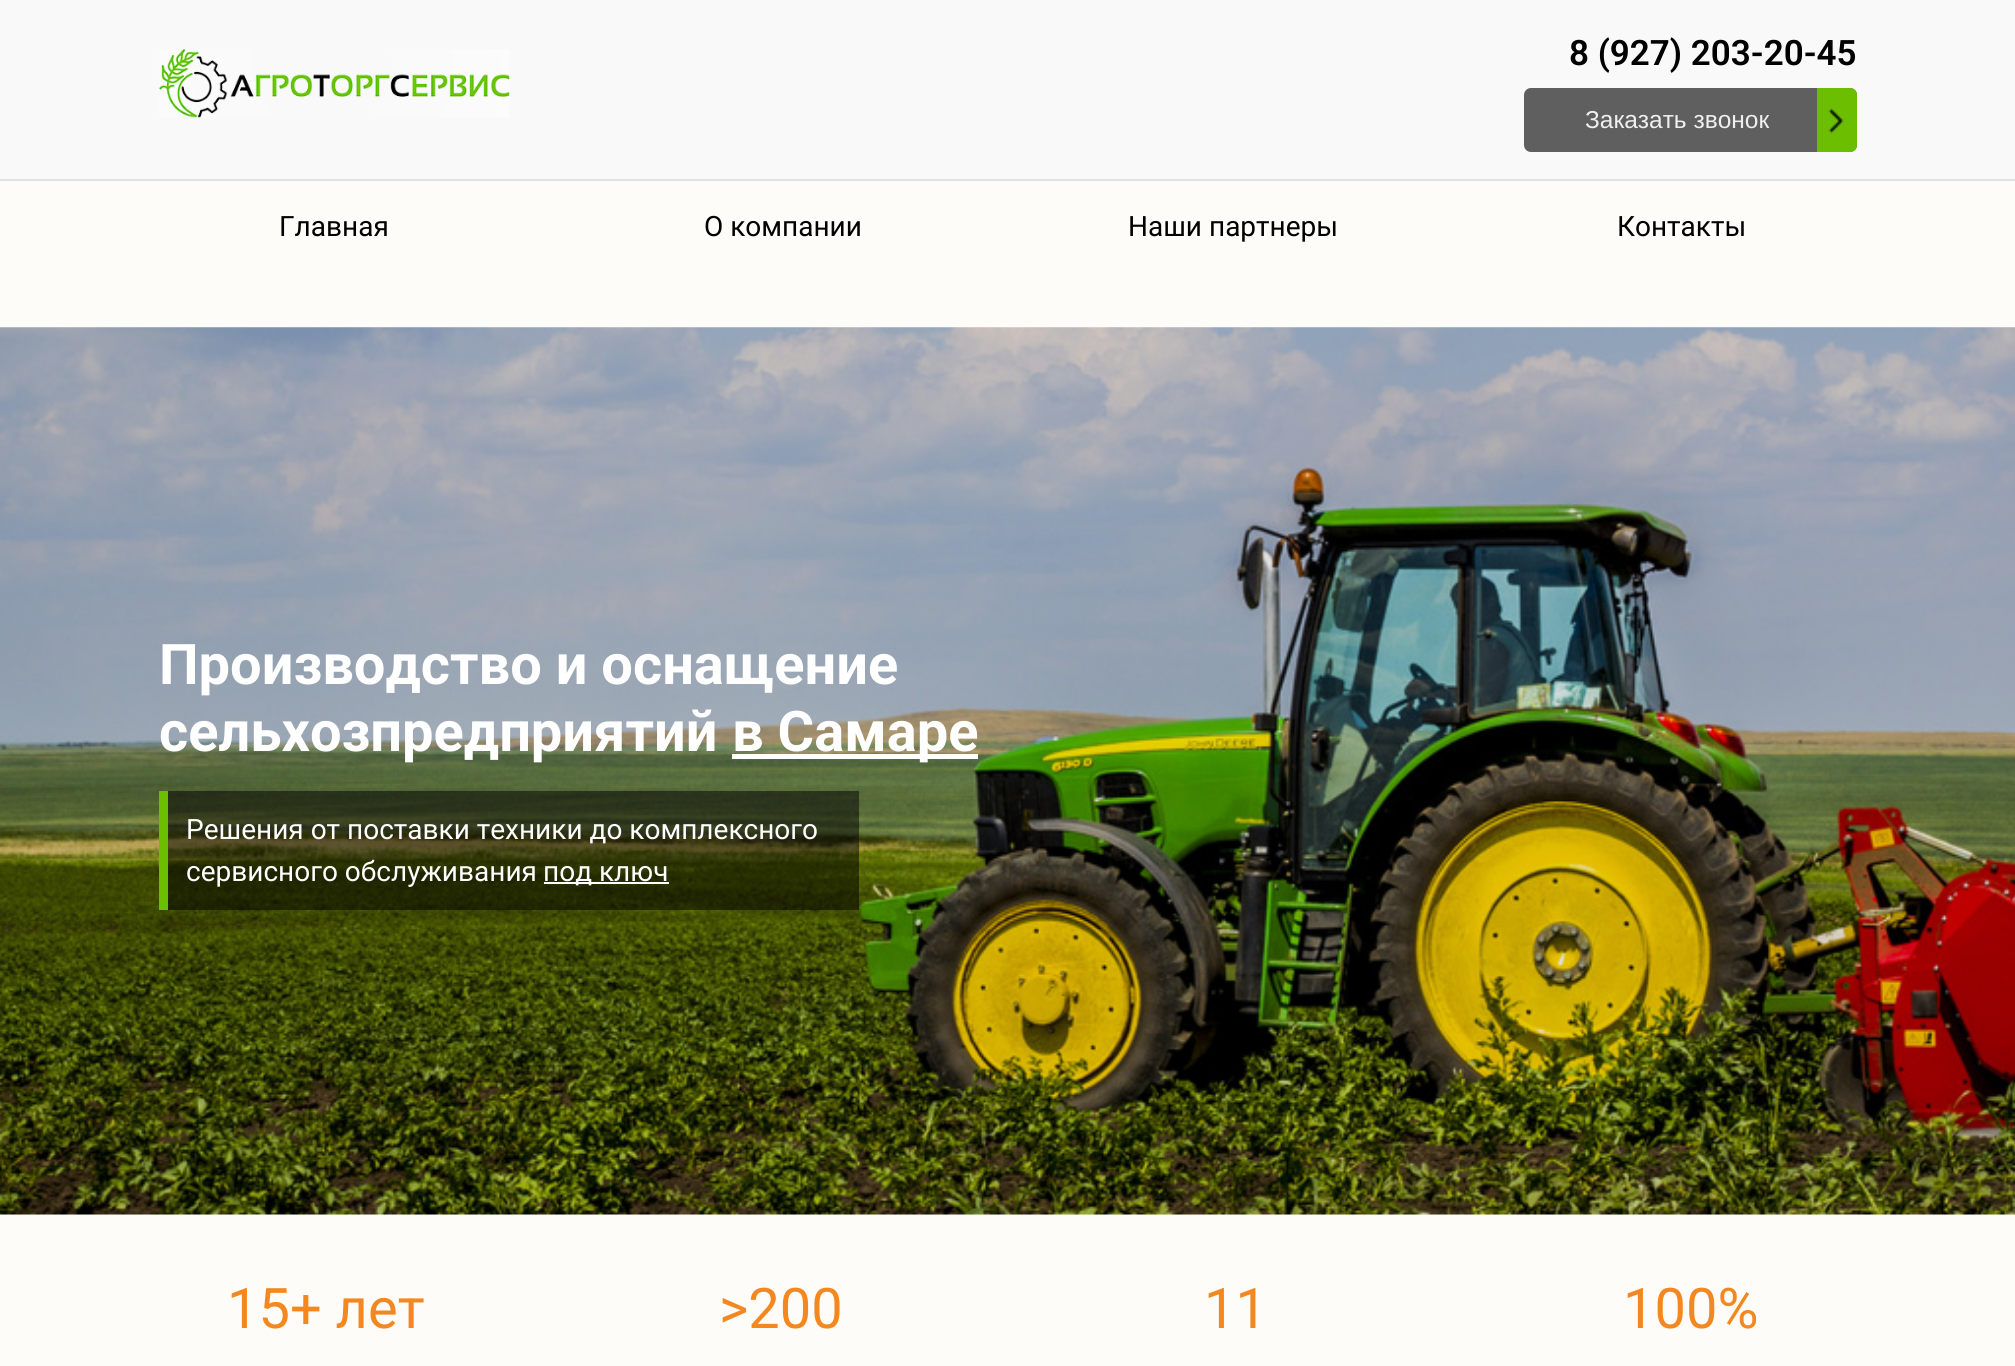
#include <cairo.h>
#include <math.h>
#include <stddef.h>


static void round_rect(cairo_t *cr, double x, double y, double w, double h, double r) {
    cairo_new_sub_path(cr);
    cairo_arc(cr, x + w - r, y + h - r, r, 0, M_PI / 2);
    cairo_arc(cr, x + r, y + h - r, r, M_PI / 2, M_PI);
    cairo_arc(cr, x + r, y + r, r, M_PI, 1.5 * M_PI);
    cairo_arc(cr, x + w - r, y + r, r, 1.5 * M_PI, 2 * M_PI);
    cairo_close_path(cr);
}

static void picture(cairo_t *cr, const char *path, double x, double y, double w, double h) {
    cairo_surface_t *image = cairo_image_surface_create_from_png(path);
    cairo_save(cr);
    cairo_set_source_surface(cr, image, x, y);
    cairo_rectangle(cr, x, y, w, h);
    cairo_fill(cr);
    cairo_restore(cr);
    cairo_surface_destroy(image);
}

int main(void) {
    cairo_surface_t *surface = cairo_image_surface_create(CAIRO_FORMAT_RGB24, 2015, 1366);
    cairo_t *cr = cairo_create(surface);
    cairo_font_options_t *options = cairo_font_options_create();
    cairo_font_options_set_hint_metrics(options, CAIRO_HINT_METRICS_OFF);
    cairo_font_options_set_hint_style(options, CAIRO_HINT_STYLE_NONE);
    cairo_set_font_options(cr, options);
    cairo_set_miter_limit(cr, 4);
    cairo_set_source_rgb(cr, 0.992, 0.988, 0.973);
    cairo_paint(cr);
    cairo_set_source_rgb(cr, 0.973, 0.976, 0.98);
    cairo_rectangle(cr, 0, 0, 2015, 179);
    cairo_fill(cr);
    cairo_set_source_rgb(cr, 0.871, 0.886, 0.902);
    cairo_rectangle(cr, 0, 179, 2015, 2);
    cairo_fill(cr);
    picture(cr, "img1.png", 159, 49, 351, 69);
    cairo_select_font_face(cr, "Roboto SemiBold", CAIRO_FONT_SLANT_NORMAL, CAIRO_FONT_WEIGHT_NORMAL);
    cairo_set_font_size(cr, 35);
    cairo_set_source_rgb(cr, 0, 0, 0);
    cairo_move_to(cr, 1569, 65);
    cairo_show_text(cr, "8 (927) 203-20-45");
    cairo_set_source_rgb(cr, 0.373, 0.373, 0.373);
    round_rect(cr, 1524, 88, 333, 64, 7);
    cairo_fill(cr);
    cairo_select_font_face(cr, "Liberation Sans", CAIRO_FONT_SLANT_NORMAL, CAIRO_FONT_WEIGHT_NORMAL);
    cairo_set_font_size(cr, 24.5);
    cairo_set_source_rgb(cr, 0.937, 0.937, 0.937);
    cairo_move_to(cr, 1585, 128);
    cairo_show_text(cr, "Заказать звонок");
    cairo_set_source_rgb(cr, 0.424, 0.749, 0);
    cairo_new_path(cr);
    cairo_move_to(cr, 1817, 88);
    cairo_line_to(cr, 1850, 88);
    cairo_curve_to(cr, 1854, 88, 1857, 91, 1857, 95);
    cairo_line_to(cr, 1857, 145);
    cairo_curve_to(cr, 1857, 149, 1854, 152, 1850, 152);
    cairo_line_to(cr, 1817, 152);
    cairo_close_path(cr);
    cairo_fill(cr);
    picture(cr, "img2.png", 1828, 108, 16, 26);
    cairo_select_font_face(cr, "Roboto", CAIRO_FONT_SLANT_NORMAL, CAIRO_FONT_WEIGHT_NORMAL);
    cairo_set_font_size(cr, 28);
    cairo_set_source_rgb(cr, 0, 0, 0);
    cairo_move_to(cr, 279, 236);
    cairo_show_text(cr, "Главная");
    cairo_move_to(cr, 704, 236);
    cairo_show_text(cr, "О компании");
    cairo_move_to(cr, 1128, 236);
    cairo_show_text(cr, "Наши партнеры");
    cairo_move_to(cr, 1617, 236);
    cairo_show_text(cr, "Контакты");
    picture(cr, "img3.png", 0, 327, 2015, 888);
    cairo_select_font_face(cr, "Roboto", CAIRO_FONT_SLANT_NORMAL, CAIRO_FONT_WEIGHT_BOLD);
    cairo_set_font_size(cr, 56);
    cairo_set_source_rgb(cr, 1, 1, 1);
    cairo_move_to(cr, 159, 684);
    cairo_show_text(cr, "Производство и оснащение");
    cairo_move_to(cr, 159, 751);
    cairo_show_text(cr, "сельхозпредприятий");
    cairo_rectangle(cr, 732, 754, 246, 5);
    cairo_fill(cr);
    cairo_move_to(cr, 732, 751);
    cairo_show_text(cr, "в Самаре");
    cairo_set_source_rgba(cr, 0, 0, 0, 0.5);
    cairo_rectangle(cr, 168, 791, 691, 119);
    cairo_fill(cr);
    cairo_set_source_rgb(cr, 0.424, 0.749, 0);
    cairo_rectangle(cr, 159, 791, 9, 119);
    cairo_fill(cr);
    cairo_select_font_face(cr, "Roboto", CAIRO_FONT_SLANT_NORMAL, CAIRO_FONT_WEIGHT_NORMAL);
    cairo_set_font_size(cr, 28);
    cairo_set_source_rgb(cr, 1, 1, 1);
    cairo_move_to(cr, 186, 839);
    cairo_show_text(cr, "Решения от поставки техники до комплексного");
    cairo_move_to(cr, 186, 881);
    cairo_show_text(cr, "сервисного обслуживания");
    cairo_rectangle(cr, 544, 882, 125, 2);
    cairo_fill(cr);
    cairo_move_to(cr, 543, 881);
    cairo_show_text(cr, "под ключ");
    cairo_set_font_size(cr, 56);
    cairo_set_source_rgb(cr, 0.957, 0.533, 0.125);
    cairo_move_to(cr, 227, 1328);
    cairo_show_text(cr, "15+ лет");
    cairo_move_to(cr, 719, 1328);
    cairo_show_text(cr, ">200");
    cairo_move_to(cr, 1204, 1328);
    cairo_show_text(cr, "11");
    cairo_move_to(cr, 1623, 1328);
    cairo_show_text(cr, "100%");
    cairo_surface_write_to_png(surface, "page.png");
    cairo_font_options_destroy(options);
    cairo_destroy(cr);
    cairo_surface_destroy(surface);
    return 0;
}
